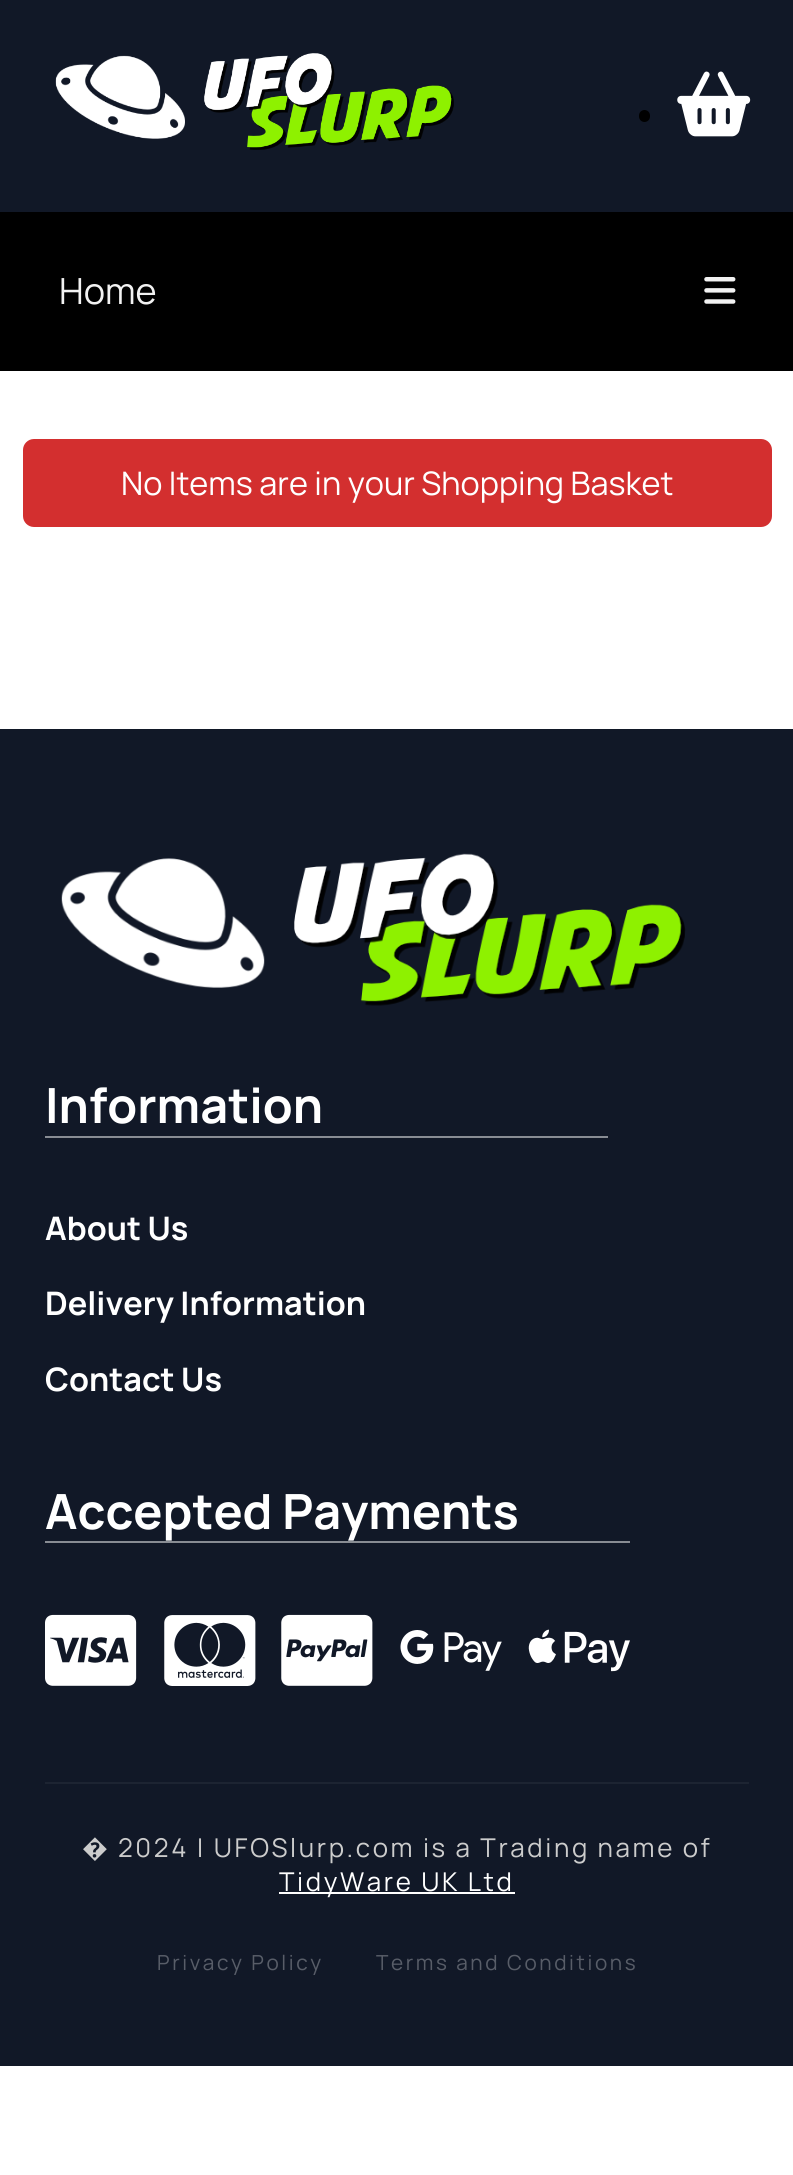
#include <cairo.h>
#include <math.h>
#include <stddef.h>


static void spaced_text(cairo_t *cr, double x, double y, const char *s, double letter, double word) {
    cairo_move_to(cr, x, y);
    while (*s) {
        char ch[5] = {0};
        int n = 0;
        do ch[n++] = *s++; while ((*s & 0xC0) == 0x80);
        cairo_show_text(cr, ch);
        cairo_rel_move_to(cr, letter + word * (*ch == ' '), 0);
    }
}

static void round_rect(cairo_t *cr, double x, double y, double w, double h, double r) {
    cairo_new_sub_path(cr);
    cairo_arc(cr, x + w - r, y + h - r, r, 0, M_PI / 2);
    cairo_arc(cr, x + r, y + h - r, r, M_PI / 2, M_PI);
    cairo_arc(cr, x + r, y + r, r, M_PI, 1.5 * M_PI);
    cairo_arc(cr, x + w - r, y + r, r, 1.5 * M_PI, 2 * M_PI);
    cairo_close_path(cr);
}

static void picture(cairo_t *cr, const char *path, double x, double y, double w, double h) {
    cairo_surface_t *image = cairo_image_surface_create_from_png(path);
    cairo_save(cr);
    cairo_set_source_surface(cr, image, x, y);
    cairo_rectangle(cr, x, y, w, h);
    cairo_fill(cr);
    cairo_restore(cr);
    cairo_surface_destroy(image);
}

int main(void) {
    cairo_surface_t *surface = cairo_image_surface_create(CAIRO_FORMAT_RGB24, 793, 2175);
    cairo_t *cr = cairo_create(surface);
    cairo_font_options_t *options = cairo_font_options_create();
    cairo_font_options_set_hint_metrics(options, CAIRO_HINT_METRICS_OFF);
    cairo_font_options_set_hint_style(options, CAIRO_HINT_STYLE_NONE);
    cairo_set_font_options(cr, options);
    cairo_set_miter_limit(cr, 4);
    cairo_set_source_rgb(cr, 1, 1, 1);
    cairo_paint(cr);
    cairo_set_source_rgb(cr, 0.067, 0.094, 0.153);
    cairo_rectangle(cr, 0, 0, 793, 212);
    cairo_fill(cr);
    picture(cr, "img1.png", 55, 53, 399, 97);
    cairo_set_source_rgb(cr, 0, 0, 0);
    round_rect(cr, 639, 110, 11, 12, 5.5);
    cairo_fill(cr);
    picture(cr, "img2.png", 677, 71, 74, 66);
    cairo_rectangle(cr, 0, 212, 793, 159);
    cairo_fill(cr);
    cairo_select_font_face(cr, "Manrope", CAIRO_FONT_SLANT_NORMAL, CAIRO_FONT_WEIGHT_NORMAL);
    cairo_set_font_size(cr, 36);
    cairo_set_source_rgb(cr, 0.949, 0.949, 0.949);
    cairo_move_to(cr, 59, 304);
    cairo_show_text(cr, "Home");
    picture(cr, "img3.png", 704, 277, 32, 27);
    cairo_set_source_rgb(cr, 0.827, 0.184, 0.184);
    round_rect(cr, 23, 439, 749, 88, 11);
    cairo_fill(cr);
    cairo_set_font_size(cr, 32.4);
    cairo_set_source_rgb(cr, 1, 1, 1);
    cairo_move_to(cr, 121, 495);
    cairo_show_text(cr, "No Items are in your Shopping Basket");
    cairo_set_source_rgb(cr, 0.067, 0.094, 0.153);
    cairo_rectangle(cr, 0, 729, 793, 1337);
    cairo_fill(cr);
    picture(cr, "img4.png", 61, 853, 625, 153);
    cairo_set_source_rgb(cr, 0.533, 0.549, 0.576);
    cairo_rectangle(cr, 45, 1136, 563, 2);
    cairo_fill(cr);
    cairo_select_font_face(cr, "Manrope", CAIRO_FONT_SLANT_NORMAL, CAIRO_FONT_WEIGHT_BOLD);
    cairo_set_font_size(cr, 48.5);
    cairo_set_source_rgb(cr, 1, 1, 1);
    cairo_move_to(cr, 45, 1123);
    cairo_show_text(cr, "Information");
    cairo_set_font_size(cr, 32.4);
    cairo_move_to(cr, 45, 1240);
    cairo_show_text(cr, "About Us");
    cairo_move_to(cr, 45, 1315);
    cairo_show_text(cr, "Delivery Information");
    cairo_move_to(cr, 45, 1391);
    cairo_show_text(cr, "Contact Us");
    cairo_set_source_rgb(cr, 0.533, 0.549, 0.576);
    cairo_rectangle(cr, 45, 1541, 585, 2);
    cairo_fill(cr);
    cairo_set_font_size(cr, 48.5);
    cairo_set_source_rgb(cr, 1, 1, 1);
    cairo_move_to(cr, 45, 1529);
    cairo_show_text(cr, "Accepted Payments");
    picture(cr, "img5.png", 45, 1614, 92, 72);
    picture(cr, "img6.png", 164, 1615, 92, 71);
    picture(cr, "img7.png", 281, 1614, 92, 72);
    picture(cr, "img8.png", 400, 1630, 102, 41);
    picture(cr, "img9.png", 528, 1629, 102, 43);
    cairo_set_source_rgb(cr, 0.114, 0.141, 0.196);
    cairo_rectangle(cr, 45, 1782, 704, 2);
    cairo_fill(cr);
    cairo_select_font_face(cr, "Noto Sans", CAIRO_FONT_SLANT_NORMAL, CAIRO_FONT_WEIGHT_NORMAL);
    cairo_set_font_size(cr, 25.9);
    cairo_set_source_rgb(cr, 0.8, 0.8, 0.8);
    spaced_text(cr, 82, 1857, "�", 2.6, 0);
    cairo_select_font_face(cr, "Manrope", CAIRO_FONT_SLANT_NORMAL, CAIRO_FONT_WEIGHT_NORMAL);
    spaced_text(cr, 118, 1857, "2024 | UFOSlurp.com is a Trading name of", 2.6, 0);
    cairo_set_source_rgb(cr, 1, 1, 1);
    cairo_rectangle(cr, 279, 1892, 236, 2);
    cairo_fill(cr);
    spaced_text(cr, 279, 1891, "TidyWare UK Ltd", 2.6, 0);
    cairo_set_font_size(cr, 20.75);
    cairo_set_source_rgb(cr, 0.345, 0.365, 0.408);
    spaced_text(cr, 157, 1970, "Privacy Policy", 2.6, 0);
    spaced_text(cr, 376, 1970, "Terms and Conditions", 2.6, 0);
    cairo_surface_write_to_png(surface, "page.png");
    cairo_font_options_destroy(options);
    cairo_destroy(cr);
    cairo_surface_destroy(surface);
    return 0;
}
